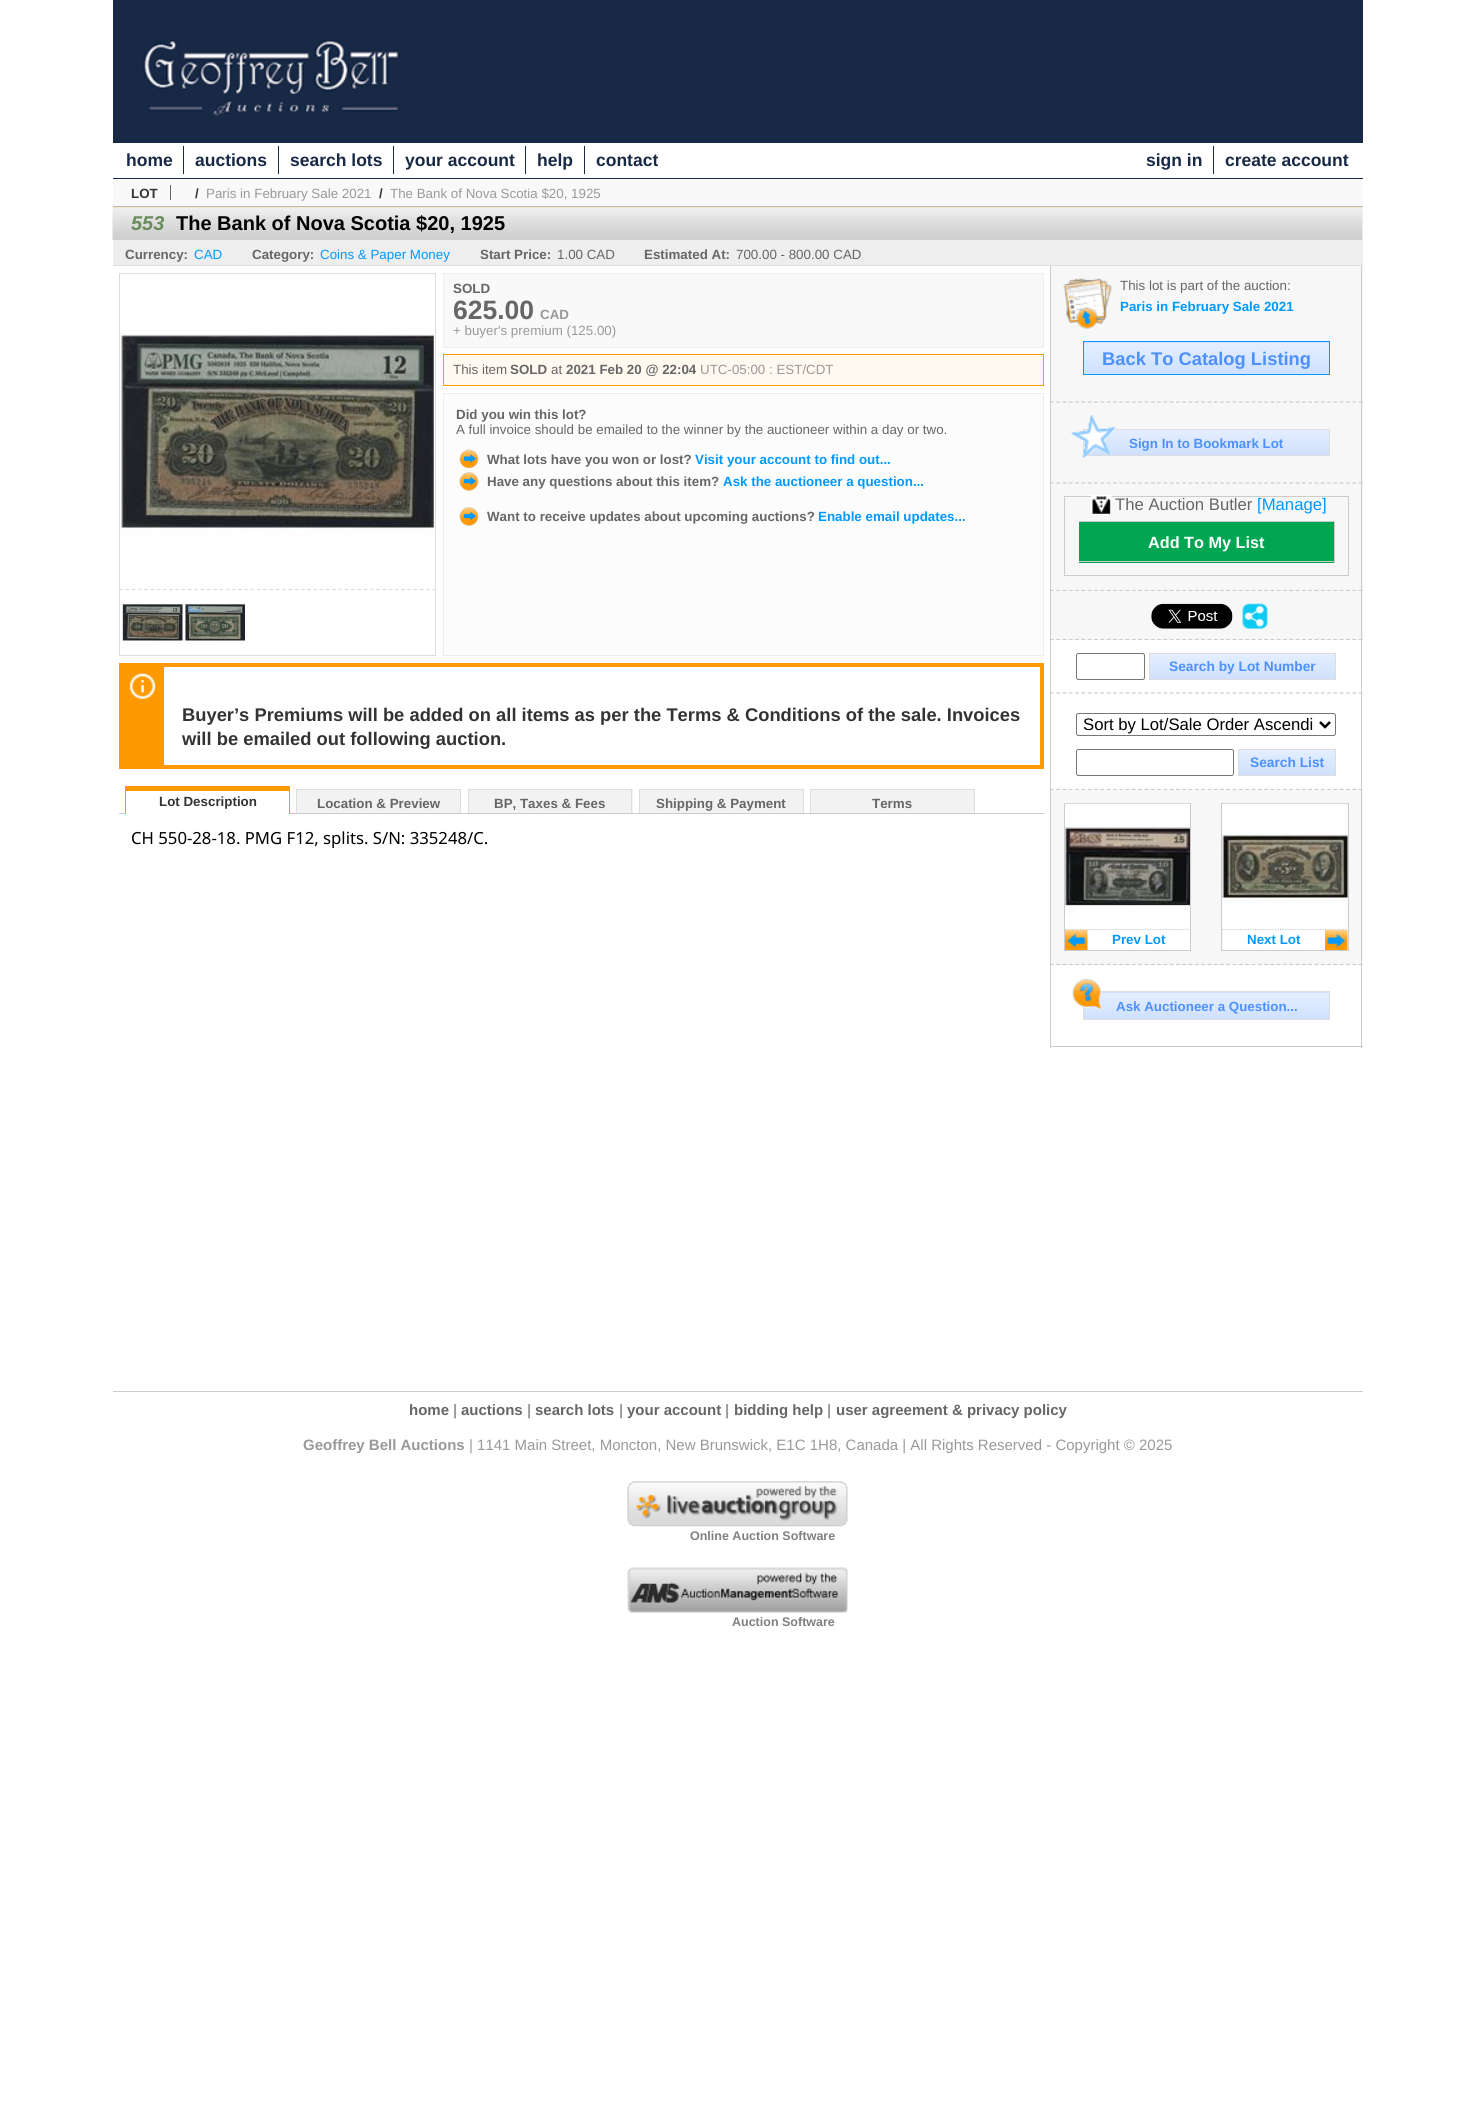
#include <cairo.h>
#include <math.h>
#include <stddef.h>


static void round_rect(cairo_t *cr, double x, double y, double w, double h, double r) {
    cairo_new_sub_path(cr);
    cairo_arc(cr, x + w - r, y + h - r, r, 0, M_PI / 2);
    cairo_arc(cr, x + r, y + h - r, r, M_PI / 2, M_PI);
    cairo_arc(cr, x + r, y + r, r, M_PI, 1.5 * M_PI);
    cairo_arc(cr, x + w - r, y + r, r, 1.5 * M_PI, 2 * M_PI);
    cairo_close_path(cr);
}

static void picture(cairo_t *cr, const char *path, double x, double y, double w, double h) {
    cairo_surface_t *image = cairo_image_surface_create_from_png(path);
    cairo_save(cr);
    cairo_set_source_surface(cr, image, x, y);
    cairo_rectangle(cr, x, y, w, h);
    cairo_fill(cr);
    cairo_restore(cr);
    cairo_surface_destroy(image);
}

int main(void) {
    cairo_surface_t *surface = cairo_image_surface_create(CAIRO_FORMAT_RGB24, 1474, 2113);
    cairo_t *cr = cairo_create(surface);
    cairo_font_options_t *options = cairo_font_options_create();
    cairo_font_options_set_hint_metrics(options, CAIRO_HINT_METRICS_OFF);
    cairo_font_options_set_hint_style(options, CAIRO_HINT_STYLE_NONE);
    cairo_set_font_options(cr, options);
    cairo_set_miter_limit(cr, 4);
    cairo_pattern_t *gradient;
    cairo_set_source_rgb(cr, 1, 1, 1);
    cairo_paint(cr);
    cairo_set_source_rgb(cr, 0.094, 0.161, 0.271);
    cairo_rectangle(cr, 113, 0, 1250, 143);
    cairo_fill(cr);
    picture(cr, "img1.png", 139, 39, 261, 78);
    cairo_rectangle(cr, 113, 178, 1250, 1);
    cairo_fill(cr);
    cairo_select_font_face(cr, "Liberation Sans", CAIRO_FONT_SLANT_NORMAL, CAIRO_FONT_WEIGHT_BOLD);
    cairo_set_font_size(cr, 17.5);
    cairo_move_to(cr, 126, 166);
    cairo_show_text(cr, "home");
    cairo_rectangle(cr, 183, 146, 1, 28);
    cairo_fill(cr);
    cairo_move_to(cr, 195, 166);
    cairo_show_text(cr, "auctions");
    cairo_rectangle(cr, 278, 146, 1, 28);
    cairo_fill(cr);
    cairo_move_to(cr, 290, 166);
    cairo_show_text(cr, "search lots");
    cairo_rectangle(cr, 393, 146, 1, 28);
    cairo_fill(cr);
    cairo_move_to(cr, 405, 166);
    cairo_show_text(cr, "your account");
    cairo_rectangle(cr, 525, 146, 1, 28);
    cairo_fill(cr);
    cairo_move_to(cr, 537, 166);
    cairo_show_text(cr, "help");
    cairo_rectangle(cr, 584, 146, 1, 28);
    cairo_fill(cr);
    cairo_move_to(cr, 596, 166);
    cairo_show_text(cr, "contact");
    cairo_move_to(cr, 1146, 166);
    cairo_show_text(cr, "sign in");
    cairo_rectangle(cr, 1213, 146, 1, 28);
    cairo_fill(cr);
    cairo_move_to(cr, 1225, 166);
    cairo_show_text(cr, "create account");
    cairo_set_source_rgb(cr, 0.976, 0.976, 0.976);
    cairo_rectangle(cr, 113, 179, 1250, 29);
    cairo_fill(cr);
    cairo_set_source_rgb(cr, 0.733, 0.733, 0.733);
    cairo_rectangle(cr, 113, 206, 1250, 1);
    cairo_fill(cr);
    cairo_set_font_size(cr, 13.35);
    cairo_set_source_rgb(cr, 0.2, 0.2, 0.2);
    cairo_move_to(cr, 131, 198);
    cairo_show_text(cr, "LOT");
    cairo_set_source_rgb(cr, 0.4, 0.4, 0.4);
    cairo_rectangle(cr, 170, 185, 1, 15);
    cairo_fill(cr);
    cairo_set_source_rgb(cr, 0.2, 0.2, 0.2);
    cairo_move_to(cr, 195, 198);
    cairo_show_text(cr, "/");
    cairo_select_font_face(cr, "Liberation Sans", CAIRO_FONT_SLANT_NORMAL, CAIRO_FONT_WEIGHT_NORMAL);
    cairo_set_source_rgb(cr, 0.6, 0.6, 0.6);
    cairo_move_to(cr, 206, 198);
    cairo_show_text(cr, "Paris in February Sale 2021");
    cairo_select_font_face(cr, "Liberation Sans", CAIRO_FONT_SLANT_NORMAL, CAIRO_FONT_WEIGHT_BOLD);
    cairo_set_source_rgb(cr, 0.2, 0.2, 0.2);
    cairo_move_to(cr, 379, 198);
    cairo_show_text(cr, "/");
    cairo_select_font_face(cr, "Liberation Sans", CAIRO_FONT_SLANT_NORMAL, CAIRO_FONT_WEIGHT_NORMAL);
    cairo_set_source_rgb(cr, 0.6, 0.6, 0.6);
    cairo_move_to(cr, 390, 198);
    cairo_show_text(cr, "The Bank of Nova Scotia $20, 1925");
    picture(cr, "img2.png", 112, 207, 1251, 33);
    cairo_select_font_face(cr, "Liberation Sans", CAIRO_FONT_SLANT_ITALIC, CAIRO_FONT_WEIGHT_BOLD);
    cairo_set_font_size(cr, 20);
    cairo_set_source_rgb(cr, 0.412, 0.549, 0.357);
    cairo_move_to(cr, 131, 230);
    cairo_show_text(cr, "553");
    cairo_select_font_face(cr, "Liberation Sans", CAIRO_FONT_SLANT_NORMAL, CAIRO_FONT_WEIGHT_BOLD);
    cairo_set_source_rgb(cr, 0, 0, 0);
    cairo_move_to(cr, 176, 230);
    cairo_show_text(cr, "The Bank of Nova Scotia $20, 1925");
    cairo_set_source_rgb(cr, 0.933, 0.933, 0.933);
    cairo_rectangle(cr, 113, 240, 1250, 25);
    cairo_fill(cr);
    cairo_set_source_rgb(cr, 0.867, 0.867, 0.867);
    cairo_rectangle(cr, 113, 265, 1250, 1);
    cairo_fill(cr);
    cairo_set_font_size(cr, 13.35);
    cairo_set_source_rgb(cr, 0.4, 0.4, 0.4);
    cairo_move_to(cr, 125, 259);
    cairo_show_text(cr, "Currency:");
    cairo_select_font_face(cr, "Liberation Sans", CAIRO_FONT_SLANT_NORMAL, CAIRO_FONT_WEIGHT_NORMAL);
    cairo_set_source_rgb(cr, 0, 0.6, 1);
    cairo_move_to(cr, 194, 259);
    cairo_show_text(cr, "CAD");
    cairo_select_font_face(cr, "Liberation Sans", CAIRO_FONT_SLANT_NORMAL, CAIRO_FONT_WEIGHT_BOLD);
    cairo_set_source_rgb(cr, 0.4, 0.4, 0.4);
    cairo_move_to(cr, 252, 259);
    cairo_show_text(cr, "Category:");
    cairo_select_font_face(cr, "Liberation Sans", CAIRO_FONT_SLANT_NORMAL, CAIRO_FONT_WEIGHT_NORMAL);
    cairo_set_source_rgb(cr, 0, 0.6, 1);
    cairo_move_to(cr, 320, 259);
    cairo_show_text(cr, "Coins & Paper Money");
    cairo_select_font_face(cr, "Liberation Sans", CAIRO_FONT_SLANT_NORMAL, CAIRO_FONT_WEIGHT_BOLD);
    cairo_set_source_rgb(cr, 0.4, 0.4, 0.4);
    cairo_move_to(cr, 480, 259);
    cairo_show_text(cr, "Start Price:");
    cairo_select_font_face(cr, "Liberation Sans", CAIRO_FONT_SLANT_NORMAL, CAIRO_FONT_WEIGHT_NORMAL);
    cairo_move_to(cr, 557, 259);
    cairo_show_text(cr, "1.00 CAD");
    cairo_select_font_face(cr, "Liberation Sans", CAIRO_FONT_SLANT_NORMAL, CAIRO_FONT_WEIGHT_BOLD);
    cairo_move_to(cr, 644, 259);
    cairo_show_text(cr, "Estimated At:");
    cairo_select_font_face(cr, "Liberation Sans", CAIRO_FONT_SLANT_NORMAL, CAIRO_FONT_WEIGHT_NORMAL);
    cairo_move_to(cr, 736, 259);
    cairo_show_text(cr, "700.00 - 800.00 CAD");
    cairo_set_source_rgb(cr, 0.867, 0.867, 0.867);
    cairo_rectangle(cr, 119, 273, 317, 1);
    cairo_fill(cr);
    cairo_rectangle(cr, 435, 273, 1, 316);
    cairo_fill(cr);
    cairo_rectangle(cr, 119, 273, 1, 316);
    cairo_fill(cr);
    picture(cr, "img3.png", 121, 334, 313, 201);
    cairo_new_path(cr);
    cairo_move_to(cr, 119, 589.5);
    cairo_line_to(cr, 436, 589.5);
    cairo_set_line_width(cr, 1.2);
    cairo_set_dash(cr, (double[]){3.75, 2.52}, 2, 0);
    cairo_stroke(cr);
    cairo_rectangle(cr, 435, 589, 1, 67);
    cairo_fill(cr);
    cairo_rectangle(cr, 119, 655, 317, 1);
    cairo_fill(cr);
    cairo_rectangle(cr, 119, 589, 1, 67);
    cairo_fill(cr);
    picture(cr, "img4.png", 122, 602, 61, 39);
    picture(cr, "img5.png", 185, 602, 60, 39);
    cairo_set_source_rgb(cr, 0.976, 0.976, 0.976);
    cairo_rectangle(cr, 443.5, 273.5, 600, 74);
    cairo_fill_preserve(cr);
    cairo_set_source_rgb(cr, 0.933, 0.933, 0.933);
    cairo_set_line_width(cr, 1);
    cairo_set_dash(cr, NULL, 0, 0);
    cairo_stroke(cr);
    cairo_select_font_face(cr, "Liberation Sans", CAIRO_FONT_SLANT_NORMAL, CAIRO_FONT_WEIGHT_BOLD);
    cairo_set_source_rgb(cr, 0.4, 0.4, 0.4);
    cairo_move_to(cr, 453, 293);
    cairo_show_text(cr, "SOLD");
    cairo_set_font_size(cr, 26.5);
    cairo_move_to(cr, 453, 319);
    cairo_show_text(cr, "625.00");
    cairo_set_font_size(cr, 13.35);
    cairo_set_source_rgb(cr, 0.6, 0.6, 0.6);
    cairo_move_to(cr, 540, 319);
    cairo_show_text(cr, "CAD");
    cairo_select_font_face(cr, "Liberation Sans", CAIRO_FONT_SLANT_NORMAL, CAIRO_FONT_WEIGHT_NORMAL);
    cairo_move_to(cr, 453, 335);
    cairo_show_text(cr, "+ buyer's premium (125.00)");
    cairo_set_source_rgb(cr, 1, 0.976, 0.941);
    cairo_rectangle(cr, 443.5, 354.5, 600, 31);
    cairo_fill_preserve(cr);
    cairo_set_source_rgb(cr, 1, 0.6, 0);
    cairo_stroke(cr);
    cairo_set_source_rgb(cr, 0.4, 0.4, 0.4);
    cairo_move_to(cr, 453, 374);
    cairo_show_text(cr, "This item");
    cairo_select_font_face(cr, "Liberation Sans", CAIRO_FONT_SLANT_NORMAL, CAIRO_FONT_WEIGHT_BOLD);
    cairo_move_to(cr, 510, 374);
    cairo_show_text(cr, "SOLD");
    cairo_select_font_face(cr, "Liberation Sans", CAIRO_FONT_SLANT_NORMAL, CAIRO_FONT_WEIGHT_NORMAL);
    cairo_move_to(cr, 551, 374);
    cairo_show_text(cr, "at");
    cairo_select_font_face(cr, "Liberation Sans", CAIRO_FONT_SLANT_NORMAL, CAIRO_FONT_WEIGHT_BOLD);
    cairo_move_to(cr, 566, 374);
    cairo_show_text(cr, "2021 Feb 20 @ 22:04");
    cairo_select_font_face(cr, "Liberation Sans", CAIRO_FONT_SLANT_NORMAL, CAIRO_FONT_WEIGHT_NORMAL);
    cairo_set_source_rgb(cr, 0.6, 0.6, 0.6);
    cairo_move_to(cr, 700, 374);
    cairo_show_text(cr, "UTC-05:00 : EST/CDT");
    cairo_set_source_rgb(cr, 0.988, 0.988, 0.988);
    cairo_rectangle(cr, 443.5, 393.5, 600, 262);
    cairo_fill_preserve(cr);
    cairo_set_source_rgb(cr, 0.933, 0.933, 0.933);
    cairo_stroke(cr);
    cairo_select_font_face(cr, "Liberation Sans", CAIRO_FONT_SLANT_NORMAL, CAIRO_FONT_WEIGHT_BOLD);
    cairo_set_source_rgb(cr, 0.4, 0.4, 0.4);
    cairo_move_to(cr, 456, 419);
    cairo_show_text(cr, "Did you win this lot?");
    cairo_select_font_face(cr, "Liberation Sans", CAIRO_FONT_SLANT_NORMAL, CAIRO_FONT_WEIGHT_NORMAL);
    cairo_move_to(cr, 456, 434);
    cairo_show_text(cr, "A full invoice should be emailed to the winner by the auctioneer within a day or two.");
    picture(cr, "img6.png", 459, 449, 20, 20);
    cairo_select_font_face(cr, "Liberation Sans", CAIRO_FONT_SLANT_NORMAL, CAIRO_FONT_WEIGHT_BOLD);
    cairo_move_to(cr, 487, 464);
    cairo_show_text(cr, "What lots have you won or lost?");
    cairo_set_source_rgb(cr, 0, 0.6, 1);
    cairo_move_to(cr, 695, 464);
    cairo_show_text(cr, "Visit your account to find out...");
    picture(cr, "img7.png", 459, 472, 20, 19);
    cairo_set_source_rgb(cr, 0.4, 0.4, 0.4);
    cairo_move_to(cr, 487, 486);
    cairo_show_text(cr, "Have any questions about this item?");
    cairo_set_source_rgb(cr, 0, 0.6, 1);
    cairo_move_to(cr, 723, 486);
    cairo_show_text(cr, "Ask the auctioneer a question...");
    picture(cr, "img7.png", 459, 507, 20, 19);
    cairo_set_source_rgb(cr, 0.4, 0.4, 0.4);
    cairo_move_to(cr, 487, 521);
    cairo_show_text(cr, "Want to receive updates about upcoming auctions?");
    cairo_set_source_rgb(cr, 0, 0.6, 1);
    cairo_move_to(cr, 818, 521);
    cairo_show_text(cr, "Enable email updates...");
    cairo_set_source_rgb(cr, 1, 0.6, 0);
    cairo_rectangle(cr, 164, 663, 880, 4);
    cairo_fill(cr);
    cairo_rectangle(cr, 1040, 663, 4, 106);
    cairo_fill(cr);
    cairo_rectangle(cr, 164, 765, 880, 4);
    cairo_fill(cr);
    cairo_rectangle(cr, 119, 663, 45, 106);
    cairo_fill(cr);
    picture(cr, "img8.png", 129, 673, 27, 26);
    cairo_set_font_size(cr, 18.35);
    cairo_set_source_rgb(cr, 0.2, 0.2, 0.2);
    cairo_move_to(cr, 182, 721);
    cairo_show_text(cr, "Buyer’s Premiums will be added on all items as per the Terms & Conditions of the sale. Invoices");
    cairo_move_to(cr, 182, 745);
    cairo_show_text(cr, "will be emailed out following auction.");
    cairo_set_source_rgb(cr, 0.8, 0.8, 0.8);
    cairo_rectangle(cr, 119, 813, 925, 1);
    cairo_fill(cr);
    cairo_set_source_rgb(cr, 1, 1, 1);
    cairo_rectangle(cr, 126, 813, 163, 1);
    cairo_fill(cr);
    cairo_set_source_rgb(cr, 1, 0.6, 0);
    cairo_rectangle(cr, 125, 786, 165, 5);
    cairo_fill(cr);
    cairo_rectangle(cr, 289, 786, 1, 28);
    cairo_fill(cr);
    cairo_rectangle(cr, 125, 786, 1, 28);
    cairo_fill(cr);
    cairo_set_font_size(cr, 13.35);
    cairo_set_source_rgb(cr, 0.2, 0.2, 0.2);
    cairo_move_to(cr, 159, 806);
    cairo_show_text(cr, "Lot Description");
    cairo_set_source_rgb(cr, 0.949, 0.949, 0.949);
    cairo_rectangle(cr, 297, 790, 163, 23);
    cairo_fill(cr);
    cairo_set_source_rgb(cr, 0.867, 0.867, 0.867);
    cairo_rectangle(cr, 296, 789, 165, 1);
    cairo_fill(cr);
    cairo_rectangle(cr, 460, 789, 1, 24);
    cairo_fill(cr);
    cairo_rectangle(cr, 296, 789, 1, 24);
    cairo_fill(cr);
    cairo_set_source_rgb(cr, 0.4, 0.4, 0.4);
    cairo_move_to(cr, 317, 808);
    cairo_show_text(cr, "Location & Preview");
    cairo_set_source_rgb(cr, 0.949, 0.949, 0.949);
    cairo_rectangle(cr, 469, 790, 164, 23);
    cairo_fill(cr);
    cairo_set_source_rgb(cr, 0.867, 0.867, 0.867);
    cairo_rectangle(cr, 468, 789, 165, 1);
    cairo_fill(cr);
    cairo_rectangle(cr, 631, 789, 1, 24);
    cairo_fill(cr);
    cairo_rectangle(cr, 468, 789, 1, 24);
    cairo_fill(cr);
    cairo_set_source_rgb(cr, 0.4, 0.4, 0.4);
    cairo_move_to(cr, 494, 808);
    cairo_show_text(cr, "BP, Taxes & Fees");
    cairo_set_source_rgb(cr, 0.949, 0.949, 0.949);
    cairo_rectangle(cr, 640, 790, 163, 23);
    cairo_fill(cr);
    cairo_set_source_rgb(cr, 0.867, 0.867, 0.867);
    cairo_rectangle(cr, 639, 789, 165, 1);
    cairo_fill(cr);
    cairo_rectangle(cr, 803, 789, 1, 24);
    cairo_fill(cr);
    cairo_rectangle(cr, 639, 789, 1, 24);
    cairo_fill(cr);
    cairo_set_source_rgb(cr, 0.4, 0.4, 0.4);
    cairo_move_to(cr, 656, 808);
    cairo_show_text(cr, "Shipping & Payment");
    cairo_set_source_rgb(cr, 0.949, 0.949, 0.949);
    cairo_rectangle(cr, 811, 790, 163, 23);
    cairo_fill(cr);
    cairo_set_source_rgb(cr, 0.867, 0.867, 0.867);
    cairo_rectangle(cr, 810, 789, 165, 1);
    cairo_fill(cr);
    cairo_rectangle(cr, 974, 789, 1, 24);
    cairo_fill(cr);
    cairo_rectangle(cr, 810, 789, 1, 24);
    cairo_fill(cr);
    cairo_set_source_rgb(cr, 0.4, 0.4, 0.4);
    cairo_move_to(cr, 872, 808);
    cairo_show_text(cr, "Terms");
    cairo_select_font_face(cr, "Noto Sans", CAIRO_FONT_SLANT_NORMAL, CAIRO_FONT_WEIGHT_NORMAL);
    cairo_set_font_size(cr, 16.7);
    cairo_set_source_rgb(cr, 0, 0, 0);
    cairo_move_to(cr, 131, 844);
    cairo_show_text(cr, "CH 550-28-18. PMG F12, splits. S/N: 335248/C.");
    cairo_set_source_rgb(cr, 0.965, 0.965, 0.965);
    cairo_rectangle(cr, 1051, 266, 312, 325);
    cairo_fill(cr);
    cairo_set_source_rgb(cr, 0.8, 0.8, 0.8);
    cairo_rectangle(cr, 1361, 266, 1, 325);
    cairo_fill(cr);
    cairo_new_path(cr);
    cairo_move_to(cr, 1050, 402);
    cairo_line_to(cr, 1362.5, 402);
    cairo_set_line_width(cr, 1.2);
    cairo_set_dash(cr, (double[]){3.75, 2.55}, 2, 0);
    cairo_stroke(cr);
    cairo_rectangle(cr, 1050, 266, 1, 137);
    cairo_fill(cr);
    picture(cr, "img9.png", 1063, 278, 49, 51);
    cairo_select_font_face(cr, "Liberation Sans", CAIRO_FONT_SLANT_NORMAL, CAIRO_FONT_WEIGHT_NORMAL);
    cairo_set_font_size(cr, 13.35);
    cairo_set_source_rgb(cr, 0.4, 0.4, 0.4);
    cairo_move_to(cr, 1120, 290);
    cairo_show_text(cr, "This lot is part of the auction:");
    cairo_select_font_face(cr, "Liberation Sans", CAIRO_FONT_SLANT_NORMAL, CAIRO_FONT_WEIGHT_BOLD);
    cairo_set_source_rgb(cr, 0, 0.6, 1);
    cairo_move_to(cr, 1120, 311);
    cairo_show_text(cr, "Paris in February Sale 2021");
    gradient = cairo_pattern_create_linear(1206, 311, 1206, 343);
    cairo_pattern_add_color_stop_rgba(gradient, 0, 0.894, 0.933, 1, 1);
    cairo_pattern_add_color_stop_rgba(gradient, 1, 0.812, 0.882, 1, 1);
    cairo_set_source(cr, gradient);
    cairo_pattern_destroy(gradient);
    cairo_rectangle(cr, 1083, 342, 247, 1);
    cairo_fill(cr);
    gradient = cairo_pattern_create_linear(1206, 343, 1206, 374);
    cairo_pattern_add_color_stop_rgba(gradient, 0, 0.894, 0.933, 1, 1);
    cairo_pattern_add_color_stop_rgba(gradient, 1, 0.812, 0.882, 1, 1);
    cairo_set_source(cr, gradient);
    cairo_pattern_destroy(gradient);
    cairo_rectangle(cr, 1084, 343, 245, 31);
    cairo_fill(cr);
    cairo_rectangle(cr, 1083.5, 341.5, 246, 33);
    cairo_set_source_rgb(cr, 0, 0.6, 1);
    cairo_set_line_width(cr, 1);
    cairo_set_dash(cr, NULL, 0, 0);
    cairo_stroke(cr);
    cairo_set_font_size(cr, 18.35);
    cairo_set_source_rgb(cr, 0.302, 0.565, 0.996);
    cairo_move_to(cr, 1102, 365);
    cairo_show_text(cr, "Back To Catalog Listing");
    cairo_new_path(cr);
    cairo_move_to(cr, 1050, 483);
    cairo_line_to(cr, 1362.5, 483);
    cairo_set_source_rgb(cr, 0.8, 0.8, 0.8);
    cairo_set_line_width(cr, 1.2);
    cairo_set_dash(cr, (double[]){3.75, 2.55}, 2, 0);
    cairo_stroke(cr);
    cairo_rectangle(cr, 1050, 403, 1, 81);
    cairo_fill(cr);
    gradient = cairo_pattern_create_linear(1206, 430, 1206, 455);
    cairo_pattern_add_color_stop_rgba(gradient, 0, 0.894, 0.933, 1, 1);
    cairo_pattern_add_color_stop_rgba(gradient, 1, 0.812, 0.882, 1, 1);
    cairo_set_source(cr, gradient);
    cairo_pattern_destroy(gradient);
    cairo_rectangle(cr, 1084, 430, 245, 25);
    cairo_fill(cr);
    cairo_rectangle(cr, 1083.5, 429.5, 246, 26);
    cairo_set_source_rgb(cr, 0.867, 0.867, 0.867);
    cairo_set_line_width(cr, 1);
    cairo_set_dash(cr, NULL, 0, 0);
    cairo_stroke(cr);
    picture(cr, "img10.png", 1071, 414, 45, 45);
    cairo_set_font_size(cr, 13.35);
    cairo_set_source_rgb(cr, 0.302, 0.565, 0.996);
    cairo_move_to(cr, 1129, 448);
    cairo_show_text(cr, "Sign In to Bookmark Lot");
    cairo_new_path(cr);
    cairo_move_to(cr, 1050, 590.5);
    cairo_line_to(cr, 1362.5, 590.5);
    cairo_set_source_rgb(cr, 0.8, 0.8, 0.8);
    cairo_set_line_width(cr, 1.2);
    cairo_set_dash(cr, (double[]){3.75, 2.55}, 2, 0);
    cairo_stroke(cr);
    cairo_rectangle(cr, 1050, 484, 1, 107);
    cairo_fill(cr);
    cairo_rectangle(cr, 1064.5, 496.5, 284, 79);
    cairo_set_line_width(cr, 1);
    cairo_set_dash(cr, NULL, 0, 0);
    cairo_stroke(cr);
    picture(cr, "img11.png", 1091, 495, 21, 20);
    cairo_select_font_face(cr, "Liberation Sans", CAIRO_FONT_SLANT_NORMAL, CAIRO_FONT_WEIGHT_NORMAL);
    cairo_set_font_size(cr, 16.7);
    cairo_set_source_rgb(cr, 0.4, 0.4, 0.4);
    cairo_move_to(cr, 1115, 510);
    cairo_show_text(cr, "The Auction Butler");
    cairo_set_source_rgb(cr, 0, 0.6, 1);
    cairo_move_to(cr, 1257, 510);
    cairo_show_text(cr, "[Manage]");
    cairo_set_source_rgb(cr, 0, 0.651, 0.318);
    cairo_rectangle(cr, 1079, 522, 255, 41);
    cairo_fill(cr);
    cairo_set_source_rgb(cr, 0.8, 0.8, 0.8);
    cairo_rectangle(cr, 1079, 521, 256, 1);
    cairo_fill(cr);
    cairo_rectangle(cr, 1334, 521, 1, 42);
    cairo_fill(cr);
    cairo_rectangle(cr, 1079, 561, 256, 1);
    cairo_fill(cr);
    cairo_select_font_face(cr, "Liberation Sans", CAIRO_FONT_SLANT_NORMAL, CAIRO_FONT_WEIGHT_BOLD);
    cairo_set_font_size(cr, 16.25);
    cairo_set_source_rgb(cr, 1, 1, 1);
    cairo_move_to(cr, 1148, 548);
    cairo_show_text(cr, "Add To My List");
    cairo_set_source_rgb(cr, 0.965, 0.965, 0.965);
    cairo_rectangle(cr, 1051, 591, 312, 49);
    cairo_fill(cr);
    cairo_set_source_rgb(cr, 0.8, 0.8, 0.8);
    cairo_rectangle(cr, 1361, 591, 1, 49);
    cairo_fill(cr);
    cairo_new_path(cr);
    cairo_move_to(cr, 1050, 639.5);
    cairo_line_to(cr, 1362.5, 639.5);
    cairo_set_line_width(cr, 1.2);
    cairo_set_dash(cr, (double[]){3.75, 2.55}, 2, 0);
    cairo_stroke(cr);
    cairo_rectangle(cr, 1050, 591, 1, 49);
    cairo_fill(cr);
    picture(cr, "img12.png", 1151, 603, 82, 26);
    picture(cr, "img13.png", 1242, 603, 26, 26);
    cairo_rectangle(cr, 1361, 640, 1, 150);
    cairo_fill(cr);
    cairo_new_path(cr);
    cairo_move_to(cr, 1050, 693);
    cairo_line_to(cr, 1362.5, 693);
    cairo_stroke(cr);
    cairo_rectangle(cr, 1050, 640, 1, 54);
    cairo_fill(cr);
    round_rect(cr, 1076.5, 653.5, 68, 26, 2);
    cairo_set_source_rgb(cr, 0.463, 0.463, 0.463);
    cairo_set_line_width(cr, 1);
    cairo_set_dash(cr, NULL, 0, 0);
    cairo_stroke(cr);
    gradient = cairo_pattern_create_linear(1243, 654, 1243, 679);
    cairo_pattern_add_color_stop_rgba(gradient, 0, 0.894, 0.933, 1, 1);
    cairo_pattern_add_color_stop_rgba(gradient, 1, 0.812, 0.882, 1, 1);
    cairo_set_source(cr, gradient);
    cairo_pattern_destroy(gradient);
    cairo_rectangle(cr, 1150, 654, 185, 25);
    cairo_fill(cr);
    cairo_rectangle(cr, 1149.5, 653.5, 186, 26);
    cairo_set_source_rgb(cr, 0.867, 0.867, 0.867);
    cairo_stroke(cr);
    cairo_set_font_size(cr, 13.75);
    cairo_set_source_rgb(cr, 0.302, 0.565, 0.996);
    cairo_move_to(cr, 1169, 671);
    cairo_show_text(cr, "Search by Lot Number");
    cairo_new_path(cr);
    cairo_move_to(cr, 1050, 789.5);
    cairo_line_to(cr, 1362.5, 789.5);
    cairo_set_source_rgb(cr, 0.8, 0.8, 0.8);
    cairo_set_line_width(cr, 1.2);
    cairo_set_dash(cr, (double[]){3.75, 2.55}, 2, 0);
    cairo_stroke(cr);
    cairo_rectangle(cr, 1050, 694, 1, 96);
    cairo_fill(cr);
    round_rect(cr, 1076.5, 713.5, 259, 22, 2);
    cairo_set_source_rgb(cr, 0.463, 0.463, 0.463);
    cairo_set_line_width(cr, 1);
    cairo_set_dash(cr, NULL, 0, 0);
    cairo_stroke(cr);
    cairo_new_path(cr);
    cairo_move_to(cr, 1320, 722);
    cairo_line_to(cr, 1325, 727);
    cairo_line_to(cr, 1330, 722);
    cairo_set_source_rgb(cr, 0, 0, 0);
    cairo_set_line_width(cr, 2.5);
    cairo_stroke(cr);
    cairo_select_font_face(cr, "Liberation Sans", CAIRO_FONT_SLANT_NORMAL, CAIRO_FONT_WEIGHT_NORMAL);
    cairo_set_font_size(cr, 16.7);
    cairo_move_to(cr, 1083, 730);
    cairo_show_text(cr, "Sort by Lot/Sale Order Ascendi");
    round_rect(cr, 1076.5, 749.5, 157, 26, 2);
    cairo_set_source_rgb(cr, 0.463, 0.463, 0.463);
    cairo_set_line_width(cr, 1);
    cairo_stroke(cr);
    gradient = cairo_pattern_create_linear(1287, 750, 1287, 775);
    cairo_pattern_add_color_stop_rgba(gradient, 0, 0.894, 0.933, 1, 1);
    cairo_pattern_add_color_stop_rgba(gradient, 1, 0.812, 0.882, 1, 1);
    cairo_set_source(cr, gradient);
    cairo_pattern_destroy(gradient);
    cairo_rectangle(cr, 1239, 750, 96, 25);
    cairo_fill(cr);
    cairo_rectangle(cr, 1238.5, 749.5, 97, 26);
    cairo_set_source_rgb(cr, 0.867, 0.867, 0.867);
    cairo_stroke(cr);
    cairo_select_font_face(cr, "Liberation Sans", CAIRO_FONT_SLANT_NORMAL, CAIRO_FONT_WEIGHT_BOLD);
    cairo_set_font_size(cr, 13.75);
    cairo_set_source_rgb(cr, 0.302, 0.565, 0.996);
    cairo_move_to(cr, 1250, 767);
    cairo_show_text(cr, "Search List");
    cairo_set_source_rgb(cr, 0.965, 0.965, 0.965);
    cairo_rectangle(cr, 1051, 790, 312, 175);
    cairo_fill(cr);
    cairo_set_source_rgb(cr, 0.8, 0.8, 0.8);
    cairo_rectangle(cr, 1361, 790, 1, 175);
    cairo_fill(cr);
    cairo_new_path(cr);
    cairo_move_to(cr, 1050, 964.5);
    cairo_line_to(cr, 1362.5, 964.5);
    cairo_set_line_width(cr, 1.2);
    cairo_set_dash(cr, (double[]){3.75, 2.55}, 2, 0);
    cairo_stroke(cr);
    cairo_rectangle(cr, 1050, 790, 1, 175);
    cairo_fill(cr);
    cairo_rectangle(cr, 1064.5, 803.5, 126, 147);
    cairo_set_line_width(cr, 1);
    cairo_set_dash(cr, NULL, 0, 0);
    cairo_stroke(cr);
    cairo_set_source_rgb(cr, 1, 1, 1);
    cairo_rectangle(cr, 1066, 929, 124, 21);
    cairo_fill(cr);
    cairo_new_path(cr);
    cairo_move_to(cr, 1065, 929.5);
    cairo_line_to(cr, 1190, 929.5);
    cairo_set_source_rgb(cr, 0.8, 0.8, 0.8);
    cairo_set_line_width(cr, 1.2);
    cairo_set_dash(cr, (double[]){1.25, 1.25}, 2, 0);
    cairo_stroke(cr);
    picture(cr, "img14.png", 1065, 803, 125, 126);
    picture(cr, "img15.png", 1065, 930, 23, 20);
    cairo_set_font_size(cr, 13.35);
    cairo_set_source_rgb(cr, 0, 0.6, 1);
    cairo_move_to(cr, 1112, 944);
    cairo_show_text(cr, "Prev Lot");
    cairo_rectangle(cr, 1221.5, 803.5, 127, 147);
    cairo_set_source_rgb(cr, 0.8, 0.8, 0.8);
    cairo_set_line_width(cr, 1);
    cairo_set_dash(cr, NULL, 0, 0);
    cairo_stroke(cr);
    cairo_set_source_rgb(cr, 1, 1, 1);
    cairo_rectangle(cr, 1223, 929, 125, 21);
    cairo_fill(cr);
    cairo_new_path(cr);
    cairo_move_to(cr, 1222.5, 929.5);
    cairo_line_to(cr, 1347.5, 929.5);
    cairo_set_source_rgb(cr, 0.8, 0.8, 0.8);
    cairo_set_line_width(cr, 1.2);
    cairo_set_dash(cr, (double[]){1.25, 1.25}, 2, 0);
    cairo_stroke(cr);
    picture(cr, "img16.png", 1222, 803, 126, 126);
    cairo_set_source_rgb(cr, 0, 0.6, 1);
    cairo_move_to(cr, 1247, 944);
    cairo_show_text(cr, "Next Lot");
    picture(cr, "img17.png", 1325, 930, 23, 20);
    cairo_set_source_rgb(cr, 0.8, 0.8, 0.8);
    cairo_rectangle(cr, 1361, 965, 1, 83);
    cairo_fill(cr);
    cairo_rectangle(cr, 1050, 1046, 313, 1);
    cairo_fill(cr);
    cairo_rectangle(cr, 1050, 965, 1, 83);
    cairo_fill(cr);
    gradient = cairo_pattern_create_linear(1206, 966, 1206, 993);
    cairo_pattern_add_color_stop_rgba(gradient, 0, 0.894, 0.933, 1, 1);
    cairo_pattern_add_color_stop_rgba(gradient, 1, 0.812, 0.882, 1, 1);
    cairo_set_source(cr, gradient);
    cairo_pattern_destroy(gradient);
    cairo_rectangle(cr, 1101, 992, 229, 1);
    cairo_fill(cr);
    gradient = cairo_pattern_create_linear(1206, 993, 1206, 1019);
    cairo_pattern_add_color_stop_rgba(gradient, 0, 0.894, 0.933, 1, 1);
    cairo_pattern_add_color_stop_rgba(gradient, 1, 0.812, 0.882, 1, 1);
    cairo_set_source(cr, gradient);
    cairo_pattern_destroy(gradient);
    cairo_rectangle(cr, 1084, 993, 245, 26);
    cairo_fill(cr);
    cairo_rectangle(cr, 1083.5, 991.5, 246, 28);
    cairo_set_source_rgb(cr, 0.867, 0.867, 0.867);
    cairo_set_line_width(cr, 1);
    cairo_set_dash(cr, NULL, 0, 0);
    cairo_stroke(cr);
    picture(cr, "img18.png", 1072, 978, 31, 32);
    cairo_set_source_rgb(cr, 0.302, 0.565, 0.996);
    cairo_move_to(cr, 1116, 1011);
    cairo_show_text(cr, "Ask Auctioneer a Question...");
    cairo_set_source_rgb(cr, 0.8, 0.8, 0.8);
    cairo_rectangle(cr, 113, 1391, 1250, 1);
    cairo_fill(cr);
    cairo_set_font_size(cr, 15);
    cairo_set_source_rgb(cr, 0.4, 0.4, 0.4);
    cairo_move_to(cr, 409, 1415);
    cairo_show_text(cr, "home");
    cairo_set_source_rgb(cr, 0.6, 0.6, 0.6);
    cairo_move_to(cr, 453, 1415);
    cairo_show_text(cr, "|");
    cairo_set_source_rgb(cr, 0.4, 0.4, 0.4);
    cairo_move_to(cr, 461, 1415);
    cairo_show_text(cr, "auctions");
    cairo_set_source_rgb(cr, 0.6, 0.6, 0.6);
    cairo_move_to(cr, 527, 1415);
    cairo_show_text(cr, "|");
    cairo_set_source_rgb(cr, 0.4, 0.4, 0.4);
    cairo_move_to(cr, 535, 1415);
    cairo_show_text(cr, "search lots");
    cairo_set_source_rgb(cr, 0.6, 0.6, 0.6);
    cairo_move_to(cr, 619, 1415);
    cairo_show_text(cr, "|");
    cairo_set_source_rgb(cr, 0.4, 0.4, 0.4);
    cairo_move_to(cr, 627, 1415);
    cairo_show_text(cr, "your account");
    cairo_set_source_rgb(cr, 0.6, 0.6, 0.6);
    cairo_move_to(cr, 725, 1415);
    cairo_show_text(cr, "|");
    cairo_set_source_rgb(cr, 0.4, 0.4, 0.4);
    cairo_move_to(cr, 734, 1415);
    cairo_show_text(cr, "bidding help");
    cairo_set_source_rgb(cr, 0.6, 0.6, 0.6);
    cairo_move_to(cr, 827, 1415);
    cairo_show_text(cr, "|");
    cairo_set_source_rgb(cr, 0.4, 0.4, 0.4);
    cairo_move_to(cr, 836, 1415);
    cairo_show_text(cr, "user agreement & privacy policy");
    cairo_set_source_rgb(cr, 0.6, 0.6, 0.6);
    cairo_move_to(cr, 303, 1450);
    cairo_show_text(cr, "Geoffrey Bell Auctions");
    cairo_select_font_face(cr, "Liberation Sans", CAIRO_FONT_SLANT_NORMAL, CAIRO_FONT_WEIGHT_NORMAL);
    cairo_move_to(cr, 469, 1450);
    cairo_show_text(cr, "| 1141 Main Street, Moncton, New Brunswick, E1C 1H8, Canada | All Rights Reserved - Copyright © 2025");
    picture(cr, "img19.png", 627, 1481, 221, 46);
    cairo_select_font_face(cr, "Liberation Sans", CAIRO_FONT_SLANT_NORMAL, CAIRO_FONT_WEIGHT_BOLD);
    cairo_set_font_size(cr, 12.5);
    cairo_set_source_rgb(cr, 0.502, 0.502, 0.502);
    cairo_move_to(cr, 690, 1540);
    cairo_show_text(cr, "Online Auction Software");
    picture(cr, "img20.png", 627, 1567, 221, 46);
    cairo_move_to(cr, 732, 1626);
    cairo_show_text(cr, "Auction Software");
    cairo_surface_write_to_png(surface, "page.png");
    cairo_font_options_destroy(options);
    cairo_destroy(cr);
    cairo_surface_destroy(surface);
    return 0;
}
